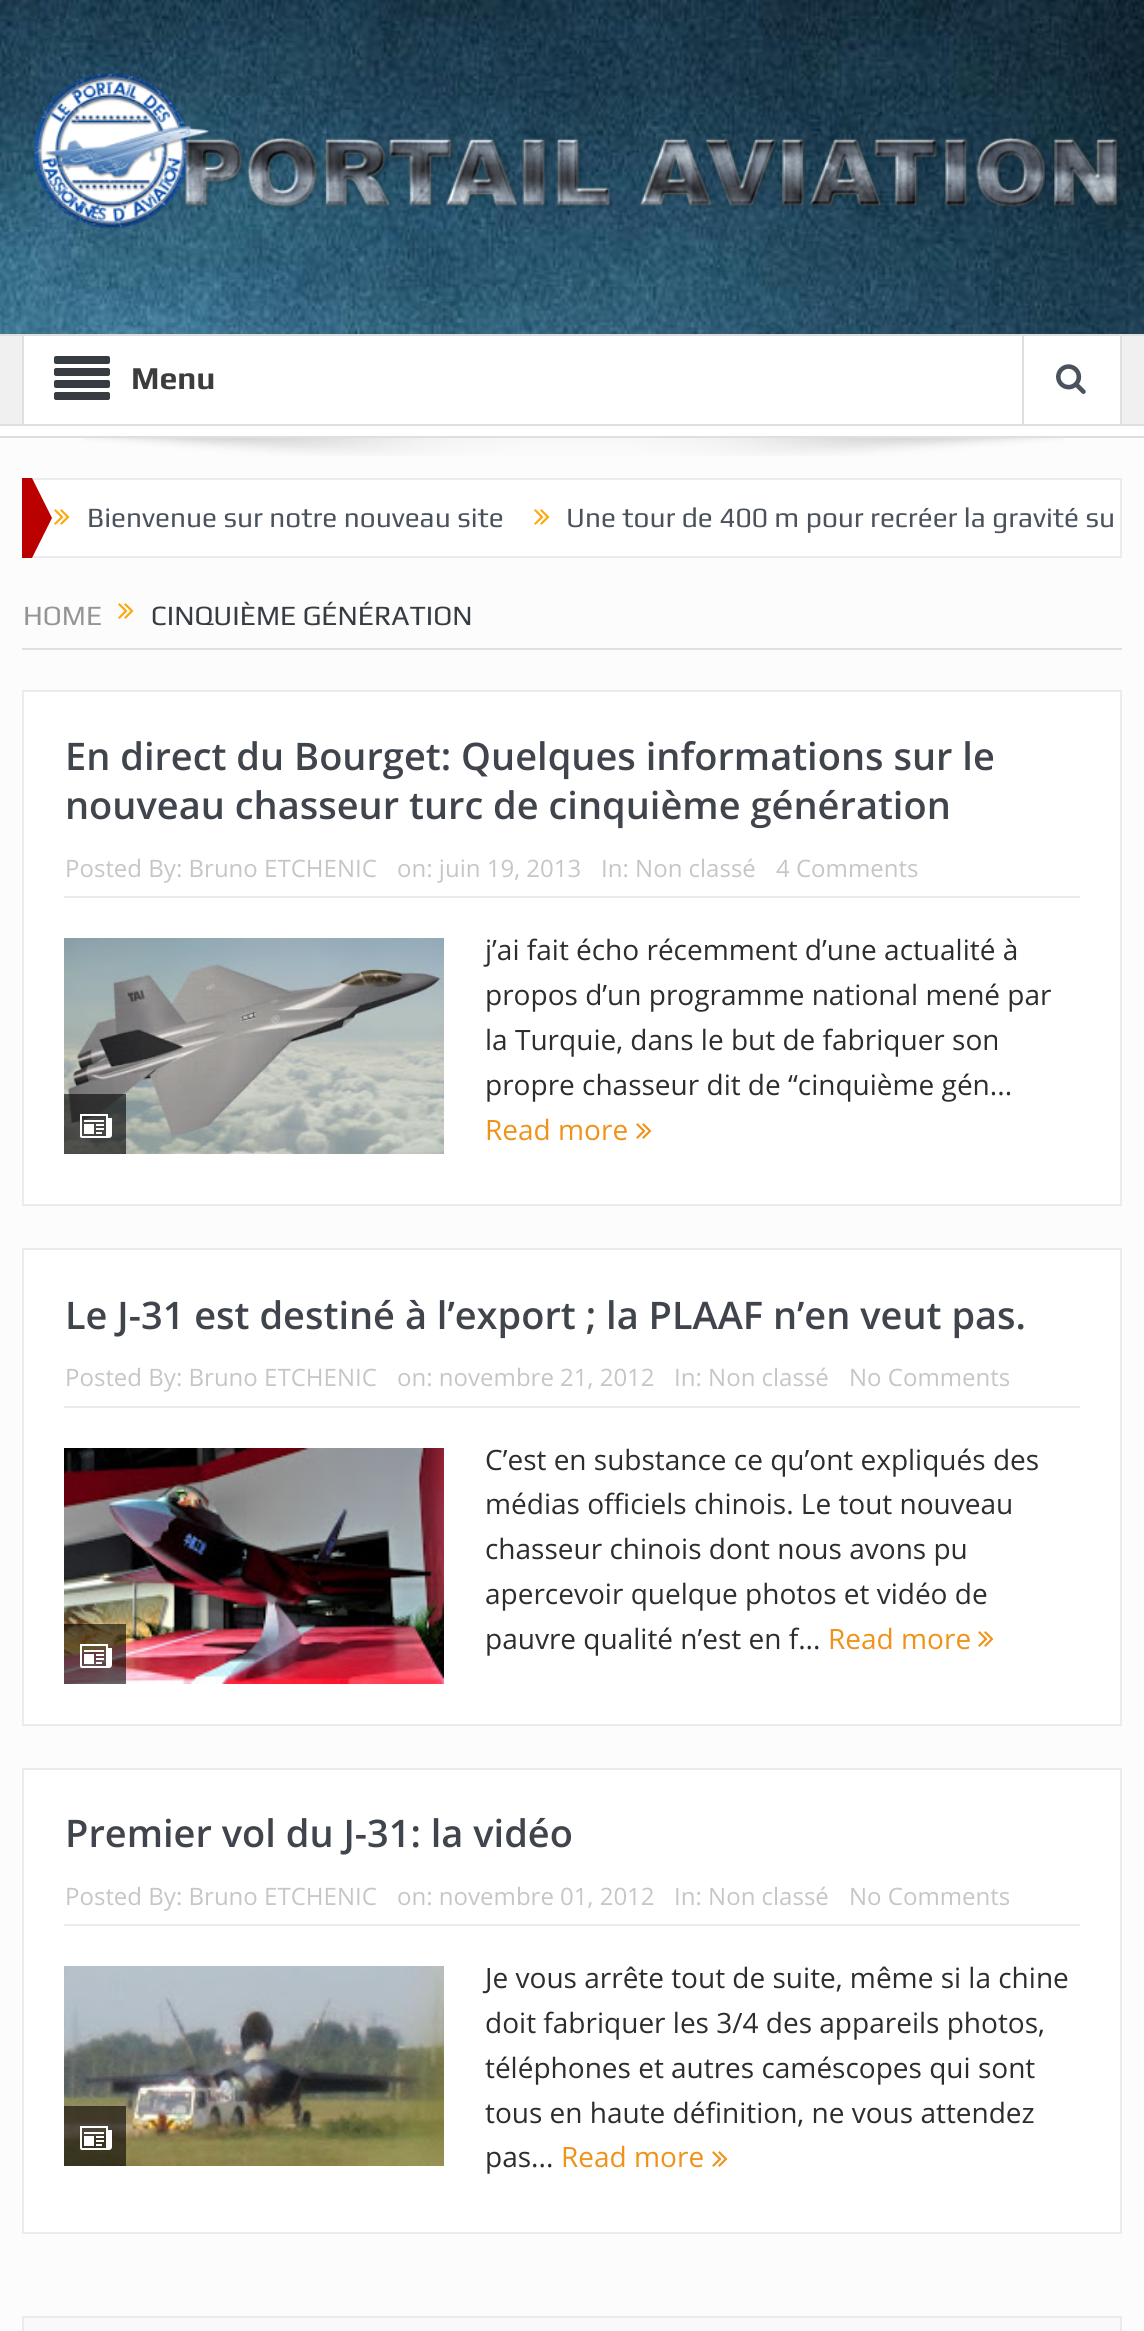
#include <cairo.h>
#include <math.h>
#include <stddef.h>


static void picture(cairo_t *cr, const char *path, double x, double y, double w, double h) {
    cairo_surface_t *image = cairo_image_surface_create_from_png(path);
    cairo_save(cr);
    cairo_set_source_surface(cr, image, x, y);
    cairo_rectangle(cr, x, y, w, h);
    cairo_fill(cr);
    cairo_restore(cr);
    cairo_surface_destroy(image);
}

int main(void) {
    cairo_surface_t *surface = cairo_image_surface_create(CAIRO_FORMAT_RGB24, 1144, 2331);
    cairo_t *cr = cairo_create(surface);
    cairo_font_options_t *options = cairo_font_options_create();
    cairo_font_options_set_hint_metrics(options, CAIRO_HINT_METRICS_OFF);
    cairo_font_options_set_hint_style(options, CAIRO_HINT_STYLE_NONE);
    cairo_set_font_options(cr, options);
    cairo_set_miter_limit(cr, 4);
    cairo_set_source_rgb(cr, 0.988, 0.988, 0.988);
    cairo_paint(cr);
    picture(cr, "img1.png", 0, 0, 1144, 334);
    picture(cr, "img2.png", 33, 72, 1087, 157);
    cairo_set_source_rgb(cr, 1, 1, 1);
    cairo_rectangle(cr, 0, 426, 1144, 10);
    cairo_fill(cr);
    cairo_set_source_rgb(cr, 0.875, 0.875, 0.875);
    cairo_rectangle(cr, 0, 334, 1144, 2);
    cairo_fill(cr);
    cairo_rectangle(cr, 0, 436, 1144, 2);
    cairo_fill(cr);
    cairo_set_source_rgb(cr, 0.941, 0.941, 0.941);
    cairo_rectangle(cr, 0, 336, 1144, 88);
    cairo_fill(cr);
    cairo_set_source_rgb(cr, 0.875, 0.875, 0.875);
    cairo_rectangle(cr, 0, 424, 1144, 2);
    cairo_fill(cr);
    cairo_set_source_rgb(cr, 1, 1, 1);
    cairo_rectangle(cr, 24, 336, 998, 88);
    cairo_fill(cr);
    cairo_set_source_rgb(cr, 0.875, 0.875, 0.875);
    cairo_rectangle(cr, 22, 336, 2, 88);
    cairo_fill(cr);
    picture(cr, "img3.png", 54, 356, 56, 44);
    cairo_select_font_face(cr, "Play", CAIRO_FONT_SLANT_NORMAL, CAIRO_FONT_WEIGHT_BOLD);
    cairo_set_font_size(cr, 32);
    cairo_set_source_rgb(cr, 0.235, 0.235, 0.235);
    cairo_move_to(cr, 131, 389);
    cairo_show_text(cr, "Menu");
    cairo_set_source_rgb(cr, 1, 1, 1);
    cairo_rectangle(cr, 1024, 336, 96, 88);
    cairo_fill(cr);
    cairo_set_source_rgb(cr, 0.875, 0.875, 0.875);
    cairo_rectangle(cr, 1120, 336, 2, 88);
    cairo_fill(cr);
    cairo_rectangle(cr, 1022, 336, 2, 88);
    cairo_fill(cr);
    picture(cr, "img4.png", 1056, 364, 30, 30);
    picture(cr, "img5.png", 83, 438, 981, 18);
    cairo_set_source_rgb(cr, 0.733, 0, 0);
    cairo_rectangle(cr, 22, 478, 10, 80);
    cairo_fill(cr);
    cairo_set_source_rgb(cr, 1, 1, 1);
    cairo_rectangle(cr, 33, 479, 1088, 78);
    cairo_fill_preserve(cr);
    cairo_set_source_rgb(cr, 0.918, 0.918, 0.918);
    cairo_stroke(cr);
    cairo_set_source_rgb(cr, 0.733, 0, 0);
    cairo_new_path(cr);
    cairo_move_to(cr, 32, 558);
    cairo_line_to(cr, 32, 478);
    cairo_line_to(cr, 52, 518);
    cairo_close_path(cr);
    cairo_fill(cr);
    picture(cr, "img6.png", 54, 509, 16, 16);
    cairo_select_font_face(cr, "Play", CAIRO_FONT_SLANT_NORMAL, CAIRO_FONT_WEIGHT_NORMAL);
    cairo_set_font_size(cr, 28);
    cairo_set_source_rgb(cr, 0.29, 0.322, 0.365);
    cairo_move_to(cr, 87, 527);
    cairo_show_text(cr, "Bienvenue sur notre nouveau site");
    picture(cr, "img6.png", 534, 509, 16, 16);
    cairo_move_to(cr, 566, 527);
    cairo_show_text(cr, "Une tour de 400 m pour recréer la gravité su");
    cairo_set_source_rgb(cr, 0.878, 0.878, 0.878);
    cairo_rectangle(cr, 22, 648, 1100, 2);
    cairo_fill(cr);
    cairo_set_source_rgb(cr, 0.584, 0.584, 0.584);
    cairo_move_to(cr, 23, 625);
    cairo_show_text(cr, "HOME");
    picture(cr, "img7.png", 118, 603, 16, 16);
    cairo_set_source_rgb(cr, 0.216, 0.235, 0.263);
    cairo_move_to(cr, 151, 625);
    cairo_show_text(cr, "CINQUIÈME GÉNÉRATION");
    cairo_set_source_rgb(cr, 1, 1, 1);
    cairo_rectangle(cr, 23, 691, 1098, 514);
    cairo_fill_preserve(cr);
    cairo_set_source_rgb(cr, 0.918, 0.918, 0.918);
    cairo_stroke(cr);
    cairo_rectangle(cr, 64, 896, 1016, 2);
    cairo_fill(cr);
    cairo_select_font_face(cr, "Open Sans SemiBold", CAIRO_FONT_SLANT_NORMAL, CAIRO_FONT_WEIGHT_NORMAL);
    cairo_set_font_size(cr, 38);
    cairo_set_source_rgb(cr, 0.251, 0.271, 0.302);
    cairo_move_to(cr, 65, 770);
    cairo_show_text(cr, "En direct du Bourget: Quelques informations sur le");
    cairo_move_to(cr, 65, 819);
    cairo_show_text(cr, "nouveau chasseur turc de cinquième génération");
    cairo_select_font_face(cr, "Open Sans", CAIRO_FONT_SLANT_NORMAL, CAIRO_FONT_WEIGHT_NORMAL);
    cairo_set_font_size(cr, 24);
    cairo_set_source_rgb(cr, 0.776, 0.776, 0.776);
    cairo_move_to(cr, 65, 877);
    cairo_show_text(cr, "Posted By: Bruno ETCHENIC");
    cairo_move_to(cr, 397, 877);
    cairo_show_text(cr, "on: juin 19, 2013");
    cairo_move_to(cr, 601, 877);
    cairo_show_text(cr, "In: Non classé");
    cairo_move_to(cr, 776, 877);
    cairo_show_text(cr, "4 Comments");
    picture(cr, "img8.png", 64, 938, 380, 216);
    cairo_set_source_rgba(cr, 0, 0, 0, 0.6);
    cairo_rectangle(cr, 64, 1094, 62, 60);
    cairo_fill(cr);
    picture(cr, "img9.png", 80, 1114, 32, 24);
    cairo_set_font_size(cr, 28);
    cairo_set_source_rgb(cr, 0.176, 0.176, 0.176);
    cairo_move_to(cr, 485, 960);
    cairo_show_text(cr, "j’ai fait écho récemment d’une actualité à");
    cairo_move_to(cr, 485, 1005);
    cairo_show_text(cr, "propos d’un programme national mené par");
    cairo_move_to(cr, 485, 1050);
    cairo_show_text(cr, "la Turquie, dans le but de fabriquer son");
    cairo_move_to(cr, 485, 1095);
    cairo_show_text(cr, "propre chasseur dit de “cinquième gén...");
    cairo_set_source_rgb(cr, 0.941, 0.573, 0.09);
    cairo_move_to(cr, 485, 1140);
    cairo_show_text(cr, "Read more");
    picture(cr, "img10.png", 636, 1123, 16, 16);
    cairo_set_source_rgb(cr, 1, 1, 1);
    cairo_rectangle(cr, 23, 1249, 1098, 476);
    cairo_fill_preserve(cr);
    cairo_set_source_rgb(cr, 0.918, 0.918, 0.918);
    cairo_stroke(cr);
    cairo_rectangle(cr, 64, 1406, 1016, 2);
    cairo_fill(cr);
    cairo_select_font_face(cr, "Open Sans SemiBold", CAIRO_FONT_SLANT_NORMAL, CAIRO_FONT_WEIGHT_NORMAL);
    cairo_set_font_size(cr, 38);
    cairo_set_source_rgb(cr, 0.251, 0.271, 0.302);
    cairo_move_to(cr, 65, 1329);
    cairo_show_text(cr, "Le J-31 est destiné à l’export ; la PLAAF n’en veut pas.");
    cairo_select_font_face(cr, "Open Sans", CAIRO_FONT_SLANT_NORMAL, CAIRO_FONT_WEIGHT_NORMAL);
    cairo_set_font_size(cr, 24);
    cairo_set_source_rgb(cr, 0.776, 0.776, 0.776);
    cairo_move_to(cr, 65, 1386);
    cairo_show_text(cr, "Posted By: Bruno ETCHENIC");
    cairo_move_to(cr, 397, 1386);
    cairo_show_text(cr, "on: novembre 21, 2012");
    cairo_move_to(cr, 674, 1386);
    cairo_show_text(cr, "In: Non classé");
    cairo_move_to(cr, 849, 1386);
    cairo_show_text(cr, "No Comments");
    picture(cr, "img11.png", 64, 1448, 380, 236);
    cairo_set_source_rgba(cr, 0, 0, 0, 0.6);
    cairo_rectangle(cr, 64, 1624, 62, 60);
    cairo_fill(cr);
    picture(cr, "img12.png", 80, 1644, 32, 24);
    cairo_set_font_size(cr, 28);
    cairo_set_source_rgb(cr, 0.176, 0.176, 0.176);
    cairo_move_to(cr, 485, 1470);
    cairo_show_text(cr, "C’est en substance ce qu’ont expliqués des");
    cairo_move_to(cr, 485, 1514);
    cairo_show_text(cr, "médias officiels chinois. Le tout nouveau");
    cairo_move_to(cr, 485, 1559);
    cairo_show_text(cr, "chasseur chinois dont nous avons pu");
    cairo_move_to(cr, 485, 1604);
    cairo_show_text(cr, "apercevoir quelque photos et vidéo de");
    cairo_move_to(cr, 485, 1649);
    cairo_show_text(cr, "pauvre qualité n’est en f...");
    cairo_set_source_rgb(cr, 0.941, 0.573, 0.09);
    cairo_move_to(cr, 828, 1649);
    cairo_show_text(cr, "Read more");
    picture(cr, "img10.png", 978, 1631, 16, 16);
    cairo_set_source_rgb(cr, 1, 1, 1);
    cairo_rectangle(cr, 23, 1769, 1098, 464);
    cairo_fill_preserve(cr);
    cairo_set_source_rgb(cr, 0.918, 0.918, 0.918);
    cairo_stroke(cr);
    cairo_rectangle(cr, 64, 1924, 1016, 2);
    cairo_fill(cr);
    cairo_select_font_face(cr, "Open Sans SemiBold", CAIRO_FONT_SLANT_NORMAL, CAIRO_FONT_WEIGHT_NORMAL);
    cairo_set_font_size(cr, 38);
    cairo_set_source_rgb(cr, 0.251, 0.271, 0.302);
    cairo_move_to(cr, 65, 1847);
    cairo_show_text(cr, "Premier vol du J-31: la vidéo");
    cairo_select_font_face(cr, "Open Sans", CAIRO_FONT_SLANT_NORMAL, CAIRO_FONT_WEIGHT_NORMAL);
    cairo_set_font_size(cr, 24);
    cairo_set_source_rgb(cr, 0.776, 0.776, 0.776);
    cairo_move_to(cr, 65, 1905);
    cairo_show_text(cr, "Posted By: Bruno ETCHENIC");
    cairo_move_to(cr, 397, 1905);
    cairo_show_text(cr, "on: novembre 01, 2012");
    cairo_move_to(cr, 674, 1905);
    cairo_show_text(cr, "In: Non classé");
    cairo_move_to(cr, 849, 1905);
    cairo_show_text(cr, "No Comments");
    picture(cr, "img13.png", 64, 1966, 380, 200);
    cairo_set_source_rgba(cr, 0, 0, 0, 0.6);
    cairo_rectangle(cr, 64, 2106, 62, 60);
    cairo_fill(cr);
    picture(cr, "img14.png", 80, 2126, 32, 24);
    cairo_set_font_size(cr, 28);
    cairo_set_source_rgb(cr, 0.176, 0.176, 0.176);
    cairo_move_to(cr, 485, 1988);
    cairo_show_text(cr, "Je vous arrête tout de suite, même si la chine");
    cairo_move_to(cr, 485, 2033);
    cairo_show_text(cr, "doit fabriquer les 3/4 des appareils photos,");
    cairo_move_to(cr, 485, 2078);
    cairo_show_text(cr, "téléphones et autres caméscopes qui sont");
    cairo_move_to(cr, 485, 2123);
    cairo_show_text(cr, "tous en haute définition, ne vous attendez");
    cairo_move_to(cr, 485, 2167);
    cairo_show_text(cr, "pas...");
    cairo_set_source_rgb(cr, 0.941, 0.573, 0.09);
    cairo_move_to(cr, 561, 2167);
    cairo_show_text(cr, "Read more");
    picture(cr, "img10.png", 712, 2151, 16, 16);
    cairo_rectangle(cr, 23, 2317, 1098, 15);
    cairo_set_source_rgb(cr, 0.918, 0.918, 0.918);
    cairo_stroke(cr);
    cairo_set_source_rgb(cr, 0.973, 0.973, 0.973);
    cairo_rectangle(cr, 24, 2318, 1096, 13);
    cairo_fill(cr);
    cairo_surface_write_to_png(surface, "page.png");
    cairo_font_options_destroy(options);
    cairo_destroy(cr);
    cairo_surface_destroy(surface);
    return 0;
}
